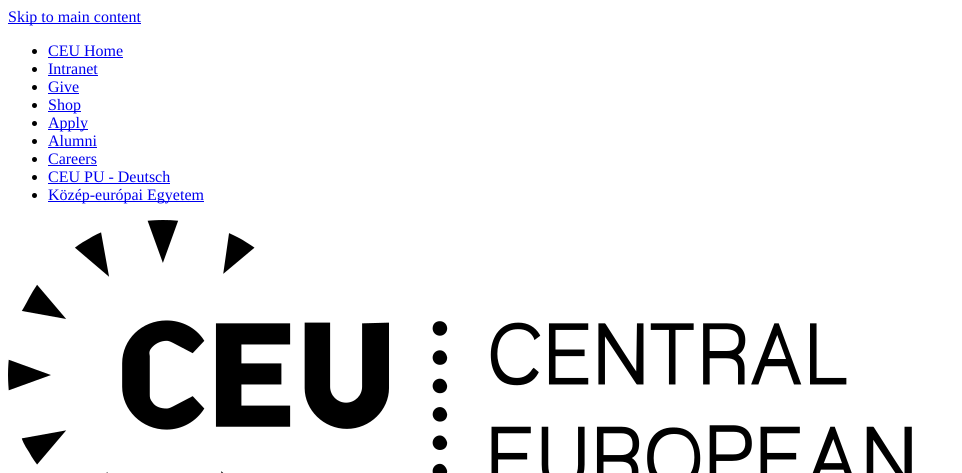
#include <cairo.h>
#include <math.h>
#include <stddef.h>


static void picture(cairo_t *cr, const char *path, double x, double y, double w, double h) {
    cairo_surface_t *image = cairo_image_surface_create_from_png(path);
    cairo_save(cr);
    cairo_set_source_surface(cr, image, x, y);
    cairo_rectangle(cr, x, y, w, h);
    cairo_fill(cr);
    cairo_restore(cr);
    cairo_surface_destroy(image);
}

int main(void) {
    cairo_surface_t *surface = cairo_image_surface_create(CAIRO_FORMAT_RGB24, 962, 473);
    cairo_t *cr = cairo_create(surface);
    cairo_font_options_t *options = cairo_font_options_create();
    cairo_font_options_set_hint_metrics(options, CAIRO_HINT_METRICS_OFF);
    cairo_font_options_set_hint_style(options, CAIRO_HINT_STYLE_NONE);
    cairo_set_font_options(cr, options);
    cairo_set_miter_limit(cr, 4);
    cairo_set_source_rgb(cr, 1, 1, 1);
    cairo_paint(cr);
    cairo_set_source_rgb(cr, 0, 0, 0.933);
    cairo_rectangle(cr, 8, 23, 133, 1);
    cairo_fill(cr);
    cairo_select_font_face(cr, "Liberation Serif", CAIRO_FONT_SLANT_NORMAL, CAIRO_FONT_WEIGHT_NORMAL);
    cairo_set_font_size(cr, 16);
    cairo_move_to(cr, 8, 22);
    cairo_show_text(cr, "Skip to main content");
    cairo_set_source_rgb(cr, 0, 0, 0);
    cairo_new_path(cr);
    cairo_arc(cr, 34.5, 51.5, 2.5, 0, 2 * M_PI);
    cairo_fill(cr);
    cairo_set_source_rgb(cr, 0, 0, 0.933);
    cairo_move_to(cr, 48, 56);
    cairo_show_text(cr, "CEU Home");
    cairo_rectangle(cr, 48, 57, 75, 1);
    cairo_fill(cr);
    cairo_set_source_rgb(cr, 0, 0, 0);
    cairo_arc(cr, 34.5, 69.5, 2.5, 0, 2 * M_PI);
    cairo_fill(cr);
    cairo_set_source_rgb(cr, 0, 0, 0.933);
    cairo_move_to(cr, 48, 74);
    cairo_show_text(cr, "Intranet");
    cairo_rectangle(cr, 48, 75, 50, 1);
    cairo_fill(cr);
    cairo_set_source_rgb(cr, 0, 0, 0);
    cairo_arc(cr, 34.5, 87.5, 2.5, 0, 2 * M_PI);
    cairo_fill(cr);
    cairo_set_source_rgb(cr, 0, 0, 0.933);
    cairo_move_to(cr, 48, 92);
    cairo_show_text(cr, "Give");
    cairo_rectangle(cr, 48, 93, 31, 1);
    cairo_fill(cr);
    cairo_set_source_rgb(cr, 0, 0, 0);
    cairo_arc(cr, 34.5, 105.5, 2.5, 0, 2 * M_PI);
    cairo_fill(cr);
    cairo_set_source_rgb(cr, 0, 0, 0.933);
    cairo_rectangle(cr, 48, 111, 33, 1);
    cairo_fill(cr);
    cairo_move_to(cr, 48, 110);
    cairo_show_text(cr, "Shop");
    cairo_set_source_rgb(cr, 0, 0, 0);
    cairo_new_path(cr);
    cairo_arc(cr, 34.5, 123.5, 2.5, 0, 2 * M_PI);
    cairo_fill(cr);
    cairo_set_source_rgb(cr, 0, 0, 0.933);
    cairo_rectangle(cr, 48, 129, 40, 1);
    cairo_fill(cr);
    cairo_move_to(cr, 48, 128);
    cairo_show_text(cr, "Apply");
    cairo_set_source_rgb(cr, 0, 0, 0);
    cairo_new_path(cr);
    cairo_arc(cr, 34.5, 141.5, 2.5, 0, 2 * M_PI);
    cairo_fill(cr);
    cairo_set_source_rgb(cr, 0, 0, 0.933);
    cairo_move_to(cr, 48, 146);
    cairo_show_text(cr, "Alumni");
    cairo_rectangle(cr, 48, 147, 49, 1);
    cairo_fill(cr);
    cairo_set_source_rgb(cr, 0, 0, 0);
    cairo_arc(cr, 34.5, 159.5, 2.5, 0, 2 * M_PI);
    cairo_fill(cr);
    cairo_set_source_rgb(cr, 0, 0, 0.933);
    cairo_move_to(cr, 48, 164);
    cairo_show_text(cr, "Careers");
    cairo_rectangle(cr, 48, 165, 49, 1);
    cairo_fill(cr);
    cairo_set_source_rgb(cr, 0, 0, 0);
    cairo_arc(cr, 34.5, 177.5, 2.5, 0, 2 * M_PI);
    cairo_fill(cr);
    cairo_set_source_rgb(cr, 0, 0, 0.933);
    cairo_move_to(cr, 48, 182);
    cairo_show_text(cr, "CEU PU - Deutsch");
    cairo_rectangle(cr, 48, 183, 122, 1);
    cairo_fill(cr);
    cairo_set_source_rgb(cr, 0, 0, 0);
    cairo_arc(cr, 34.5, 195.5, 2.5, 0, 2 * M_PI);
    cairo_fill(cr);
    cairo_set_source_rgb(cr, 0, 0, 0.933);
    cairo_rectangle(cr, 48, 201, 156, 1);
    cairo_fill(cr);
    cairo_move_to(cr, 48, 200);
    cairo_show_text(cr, "Közép-európai Egyetem");
    picture(cr, "img1.png", 8, 220, 904, 253);
    cairo_surface_write_to_png(surface, "page.png");
    cairo_font_options_destroy(options);
    cairo_destroy(cr);
    cairo_surface_destroy(surface);
    return 0;
}
